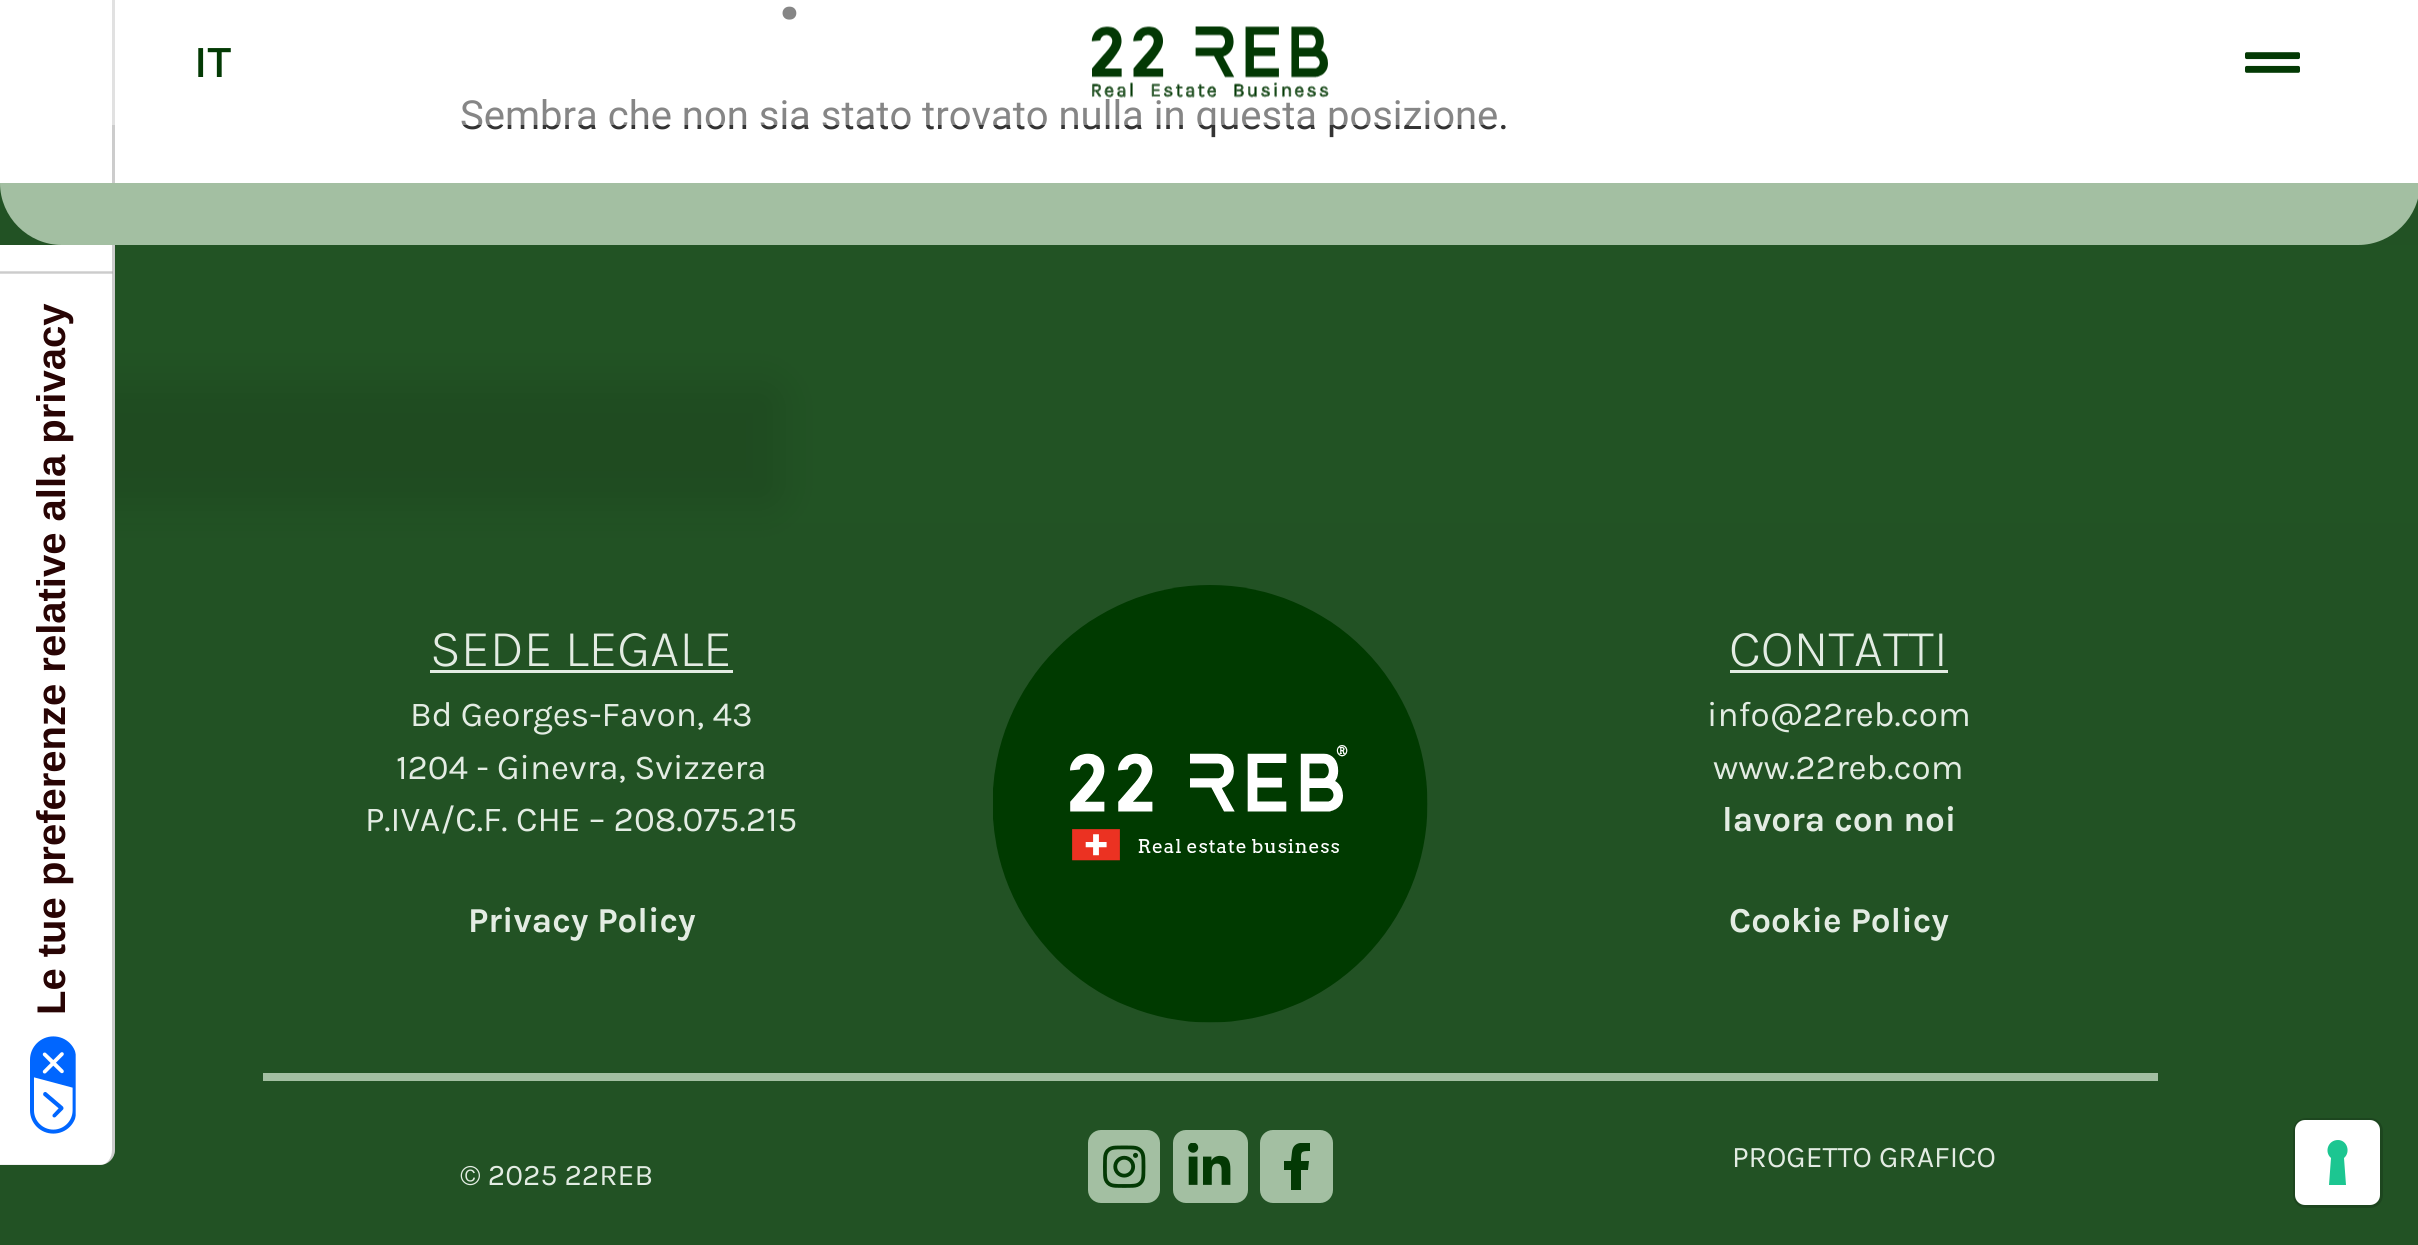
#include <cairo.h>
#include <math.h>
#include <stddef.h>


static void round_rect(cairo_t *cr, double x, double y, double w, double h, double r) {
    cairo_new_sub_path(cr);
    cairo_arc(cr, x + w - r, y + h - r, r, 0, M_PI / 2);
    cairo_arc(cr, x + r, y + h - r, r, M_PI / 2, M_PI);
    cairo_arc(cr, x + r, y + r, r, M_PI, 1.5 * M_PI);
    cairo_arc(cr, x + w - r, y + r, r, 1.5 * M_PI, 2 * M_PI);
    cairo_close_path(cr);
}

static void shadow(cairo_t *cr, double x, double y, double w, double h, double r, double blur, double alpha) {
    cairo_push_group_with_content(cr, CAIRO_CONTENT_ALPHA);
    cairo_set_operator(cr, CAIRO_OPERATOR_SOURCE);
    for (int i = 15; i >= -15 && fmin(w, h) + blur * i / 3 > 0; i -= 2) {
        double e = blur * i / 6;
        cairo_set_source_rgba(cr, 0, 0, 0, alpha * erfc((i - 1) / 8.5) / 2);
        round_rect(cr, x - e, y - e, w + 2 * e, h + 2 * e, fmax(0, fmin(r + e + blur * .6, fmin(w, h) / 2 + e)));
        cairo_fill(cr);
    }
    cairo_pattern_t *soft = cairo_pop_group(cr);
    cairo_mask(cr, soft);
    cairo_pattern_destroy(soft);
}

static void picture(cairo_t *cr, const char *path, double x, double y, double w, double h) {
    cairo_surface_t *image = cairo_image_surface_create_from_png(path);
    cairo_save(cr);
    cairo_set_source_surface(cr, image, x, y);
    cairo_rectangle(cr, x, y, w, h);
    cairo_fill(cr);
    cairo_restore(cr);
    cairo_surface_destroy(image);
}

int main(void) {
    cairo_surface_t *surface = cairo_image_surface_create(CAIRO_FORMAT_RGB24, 2418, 1245);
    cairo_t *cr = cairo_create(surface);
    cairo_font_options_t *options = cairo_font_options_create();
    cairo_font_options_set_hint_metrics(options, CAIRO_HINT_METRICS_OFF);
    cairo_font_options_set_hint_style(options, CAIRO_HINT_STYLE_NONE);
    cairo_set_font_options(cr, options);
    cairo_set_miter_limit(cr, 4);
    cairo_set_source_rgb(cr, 1, 1, 1);
    cairo_paint(cr);
    cairo_select_font_face(cr, "Roboto Medium", CAIRO_FONT_SLANT_NORMAL, CAIRO_FONT_WEIGHT_NORMAL);
    cairo_set_font_size(cr, 100);
    cairo_set_source_rgb(cr, 0.2, 0.2, 0.2);
    cairo_move_to(cr, 776, 19);
    cairo_show_text(cr, ".");
    cairo_select_font_face(cr, "Roboto", CAIRO_FONT_SLANT_NORMAL, CAIRO_FONT_WEIGHT_NORMAL);
    cairo_set_font_size(cr, 40);
    cairo_move_to(cr, 460, 129);
    cairo_show_text(cr, "Sembra che non sia stato trovato nulla in questa posizione.");
    cairo_set_source_rgb(cr, 0.133, 0.325, 0.141);
    cairo_rectangle(cr, 115, 245, 2303, 278);
    cairo_fill(cr);
    cairo_set_source_rgb(cr, 0.133, 0.322, 0.141);
    cairo_rectangle(cr, 0, 523, 2418, 722);
    cairo_fill(cr);
    cairo_set_source_rgb(cr, 0, 0, 0);
    shadow(cr, -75, 383, 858, 125, 15, 20, 0.1);
    cairo_set_source_rgb(cr, 1, 1, 1);
    cairo_new_path(cr);
    cairo_move_to(cr, -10, 1165);
    cairo_line_to(cr, -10, -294);
    cairo_line_to(cr, 100, -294);
    cairo_curve_to(cr, 108, -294, 115, -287, 115, -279);
    cairo_line_to(cr, 115, 1150);
    cairo_curve_to(cr, 115, 1158, 108, 1165, 100, 1165);
    cairo_close_path(cr);
    cairo_fill(cr);
    cairo_set_source_rgba(cr, 0, 0, 0, 0.2);
    cairo_set_fill_rule(cr, CAIRO_FILL_RULE_EVEN_ODD);
    cairo_new_path(cr);
    cairo_move_to(cr, -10, 1165);
    cairo_line_to(cr, -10, -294);
    cairo_line_to(cr, 100, -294);
    cairo_curve_to(cr, 108, -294, 115, -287, 115, -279);
    cairo_line_to(cr, 115, 1150);
    cairo_curve_to(cr, 115, 1158, 108, 1165, 100, 1165);
    cairo_close_path(cr);
    cairo_move_to(cr, -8, 1165);
    cairo_line_to(cr, -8, -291);
    cairo_line_to(cr, 100, -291);
    cairo_curve_to(cr, 107, -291, 112, -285, 112, -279);
    cairo_line_to(cr, 112, 1150);
    cairo_curve_to(cr, 112, 1158, 107, 1165, 100, 1165);
    cairo_close_path(cr);
    cairo_fill(cr);
    cairo_set_source_rgba(cr, 1, 1, 1, 0.41);
    cairo_rectangle(cr, 112, 0, 1392, 125);
    cairo_fill(cr);
    cairo_select_font_face(cr, "Karla SemiBold", CAIRO_FONT_SLANT_NORMAL, CAIRO_FONT_WEIGHT_NORMAL);
    cairo_set_font_size(cr, 45);
    cairo_set_source_rgb(cr, 0.012, 0.227, 0.016);
    cairo_move_to(cr, 194, 77);
    cairo_show_text(cr, "IT");
    picture(cr, "img1.png", 1091, 26, 238, 72);
    picture(cr, "img2.png", 2245, 52, 55, 21);
    cairo_save(cr);
    cairo_set_fill_rule(cr, CAIRO_FILL_RULE_WINDING);
    cairo_new_path(cr);
    cairo_move_to(cr, -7.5, 1165);
    cairo_line_to(cr, -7.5, -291);
    cairo_line_to(cr, 100, -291);
    cairo_curve_to(cr, 107, -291, 112.5, -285.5, 112.5, -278.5);
    cairo_line_to(cr, 112.5, 1150);
    cairo_curve_to(cr, 112.5, 1158.5, 107, 1165, 100, 1165);
    cairo_close_path(cr);
    cairo_clip(cr);
    cairo_new_path(cr);
    cairo_move_to(cr, -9, 1166);
    cairo_line_to(cr, -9, 272.5);
    cairo_line_to(cr, 114, 272.5);
    cairo_line_to(cr, 114, 1166);
    cairo_close_path(cr);
    cairo_set_source_rgba(cr, 0, 0, 0, 0.2);
    cairo_set_line_width(cr, 2.5);
    cairo_stroke(cr);
    cairo_restore(cr);
    cairo_select_font_face(cr, "Liberation Sans", CAIRO_FONT_SLANT_NORMAL, CAIRO_FONT_WEIGHT_BOLD);
    cairo_set_font_size(cr, 40);
    cairo_set_source_rgb(cr, 0.157, 0.016, 0.016);
    cairo_save(cr);
    cairo_translate(cr, 65, 1015);
    cairo_rotate(cr, -90 * M_PI / 180);
    cairo_move_to(cr, 0, 0);
    cairo_show_text(cr, "Le tue preferenze relative alla privacy");
    cairo_restore(cr);
    picture(cr, "img3.png", 30, 1036, 46, 98);
    cairo_set_source_rgb(cr, 0.133, 0.322, 0.141);
    cairo_rectangle(cr, 0, 183, 2418, 62);
    cairo_fill(cr);
    cairo_set_source_rgb(cr, 0.639, 0.749, 0.635);
    cairo_new_path(cr);
    cairo_move_to(cr, 0, 183);
    cairo_line_to(cr, 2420, 183);
    cairo_curve_to(cr, 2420, 217, 2392, 245, 2358, 245);
    cairo_line_to(cr, 62, 245);
    cairo_curve_to(cr, 28, 245, 0, 217, 0, 183);
    cairo_close_path(cr);
    cairo_fill(cr);
    cairo_select_font_face(cr, "Karla Light", CAIRO_FONT_SLANT_NORMAL, CAIRO_FONT_WEIGHT_NORMAL);
    cairo_set_font_size(cr, 52.5);
    cairo_set_source_rgb(cr, 0.89, 0.925, 0.89);
    cairo_move_to(cr, 430, 666);
    cairo_show_text(cr, "SEDE LEGALE");
    cairo_rectangle(cr, 430, 670, 303, 3);
    cairo_fill(cr);
    cairo_select_font_face(cr, "Karla", CAIRO_FONT_SLANT_NORMAL, CAIRO_FONT_WEIGHT_NORMAL);
    cairo_set_font_size(cr, 35);
    cairo_move_to(cr, 410, 726);
    cairo_show_text(cr, "Bd Georges-Favon, 43");
    cairo_move_to(cr, 396, 779);
    cairo_show_text(cr, "1204 - Ginevra, Svizzera");
    cairo_move_to(cr, 365, 831);
    cairo_show_text(cr, "P.IVA/C.F. CHE – 208.075.215");
    cairo_select_font_face(cr, "Karla", CAIRO_FONT_SLANT_NORMAL, CAIRO_FONT_WEIGHT_BOLD);
    cairo_move_to(cr, 468, 932);
    cairo_show_text(cr, "Privacy Policy");
    picture(cr, "img4.png", 993, 585, 435, 438);
    cairo_select_font_face(cr, "Karla Light", CAIRO_FONT_SLANT_NORMAL, CAIRO_FONT_WEIGHT_NORMAL);
    cairo_set_font_size(cr, 52.5);
    cairo_move_to(cr, 1729, 666);
    cairo_show_text(cr, "CONTATTI");
    cairo_rectangle(cr, 1730, 670, 218, 3);
    cairo_fill(cr);
    cairo_select_font_face(cr, "Karla", CAIRO_FONT_SLANT_NORMAL, CAIRO_FONT_WEIGHT_NORMAL);
    cairo_set_font_size(cr, 35);
    cairo_move_to(cr, 1707, 726);
    cairo_show_text(cr, "info@22reb.com");
    cairo_move_to(cr, 1713, 779);
    cairo_show_text(cr, "www.22reb.com");
    cairo_select_font_face(cr, "Karla", CAIRO_FONT_SLANT_NORMAL, CAIRO_FONT_WEIGHT_BOLD);
    cairo_move_to(cr, 1722, 831);
    cairo_show_text(cr, "lavora con noi");
    cairo_move_to(cr, 1729, 932);
    cairo_show_text(cr, "Cookie Policy");
    cairo_set_source_rgb(cr, 0.639, 0.749, 0.635);
    cairo_rectangle(cr, 263, 1073, 1895, 8);
    cairo_fill(cr);
    round_rect(cr, 1088, 1130, 72, 73, 13);
    cairo_fill(cr);
    picture(cr, "img5.png", 1103, 1145, 43, 43);
    round_rect(cr, 1173, 1130, 75, 73, 13);
    cairo_fill(cr);
    picture(cr, "img6.png", 1188, 1143, 43, 42);
    round_rect(cr, 1260, 1130, 73, 73, 13);
    cairo_fill(cr);
    cairo_save(cr);
    cairo_set_fill_rule(cr, CAIRO_FILL_RULE_WINDING);
    cairo_rectangle(cr, 1273, 1143, 47, 47);
    cairo_clip(cr);
    cairo_set_source_rgb(cr, 0.012, 0.224, 0.016);
    cairo_new_path(cr);
    cairo_move_to(cr, 1308, 1170);
    cairo_line_to(cr, 1309, 1161);
    cairo_line_to(cr, 1301, 1161);
    cairo_curve_to(cr, 1301, 1152, 1300, 1151, 1310, 1151);
    cairo_line_to(cr, 1310, 1143);
    cairo_curve_to(cr, 1302, 1142, 1293, 1142, 1292, 1152);
    cairo_line_to(cr, 1291, 1161);
    cairo_line_to(cr, 1284, 1161);
    cairo_line_to(cr, 1284, 1170);
    cairo_line_to(cr, 1291, 1170);
    cairo_line_to(cr, 1291, 1191);
    cairo_line_to(cr, 1301, 1191);
    cairo_line_to(cr, 1301, 1170);
    cairo_close_path(cr);
    cairo_fill(cr);
    cairo_restore(cr);
    cairo_select_font_face(cr, "Karla", CAIRO_FONT_SLANT_NORMAL, CAIRO_FONT_WEIGHT_NORMAL);
    cairo_set_font_size(cr, 30);
    cairo_set_source_rgb(cr, 0.89, 0.925, 0.89);
    cairo_move_to(cr, 1732, 1167);
    cairo_show_text(cr, "PROGETTO GRAFICO");
    cairo_move_to(cr, 460, 1185);
    cairo_show_text(cr, "© 2025 22REB");
    round_rect(cr, 2294.5, 1119.5, 87, 87, 11.5);
    cairo_set_source_rgb(cr, 0.114, 0.275, 0.122);
    cairo_set_line_width(cr, 3);
    cairo_stroke(cr);
    cairo_set_source_rgb(cr, 1, 1, 1);
    round_rect(cr, 2295, 1120, 85, 85, 10);
    cairo_fill(cr);
    cairo_set_source_rgb(cr, 0.11, 0.776, 0.569);
    cairo_new_path(cr);
    cairo_move_to(cr, 2338, 1140);
    cairo_curve_to(cr, 2347, 1140, 2351, 1152, 2344, 1158);
    cairo_line_to(cr, 2346, 1185);
    cairo_line_to(cr, 2329, 1185);
    cairo_line_to(cr, 2331, 1158);
    cairo_curve_to(cr, 2324, 1152, 2328, 1140, 2338, 1140);
    cairo_close_path(cr);
    cairo_fill(cr);
    cairo_surface_write_to_png(surface, "page.png");
    cairo_font_options_destroy(options);
    cairo_destroy(cr);
    cairo_surface_destroy(surface);
    return 0;
}
